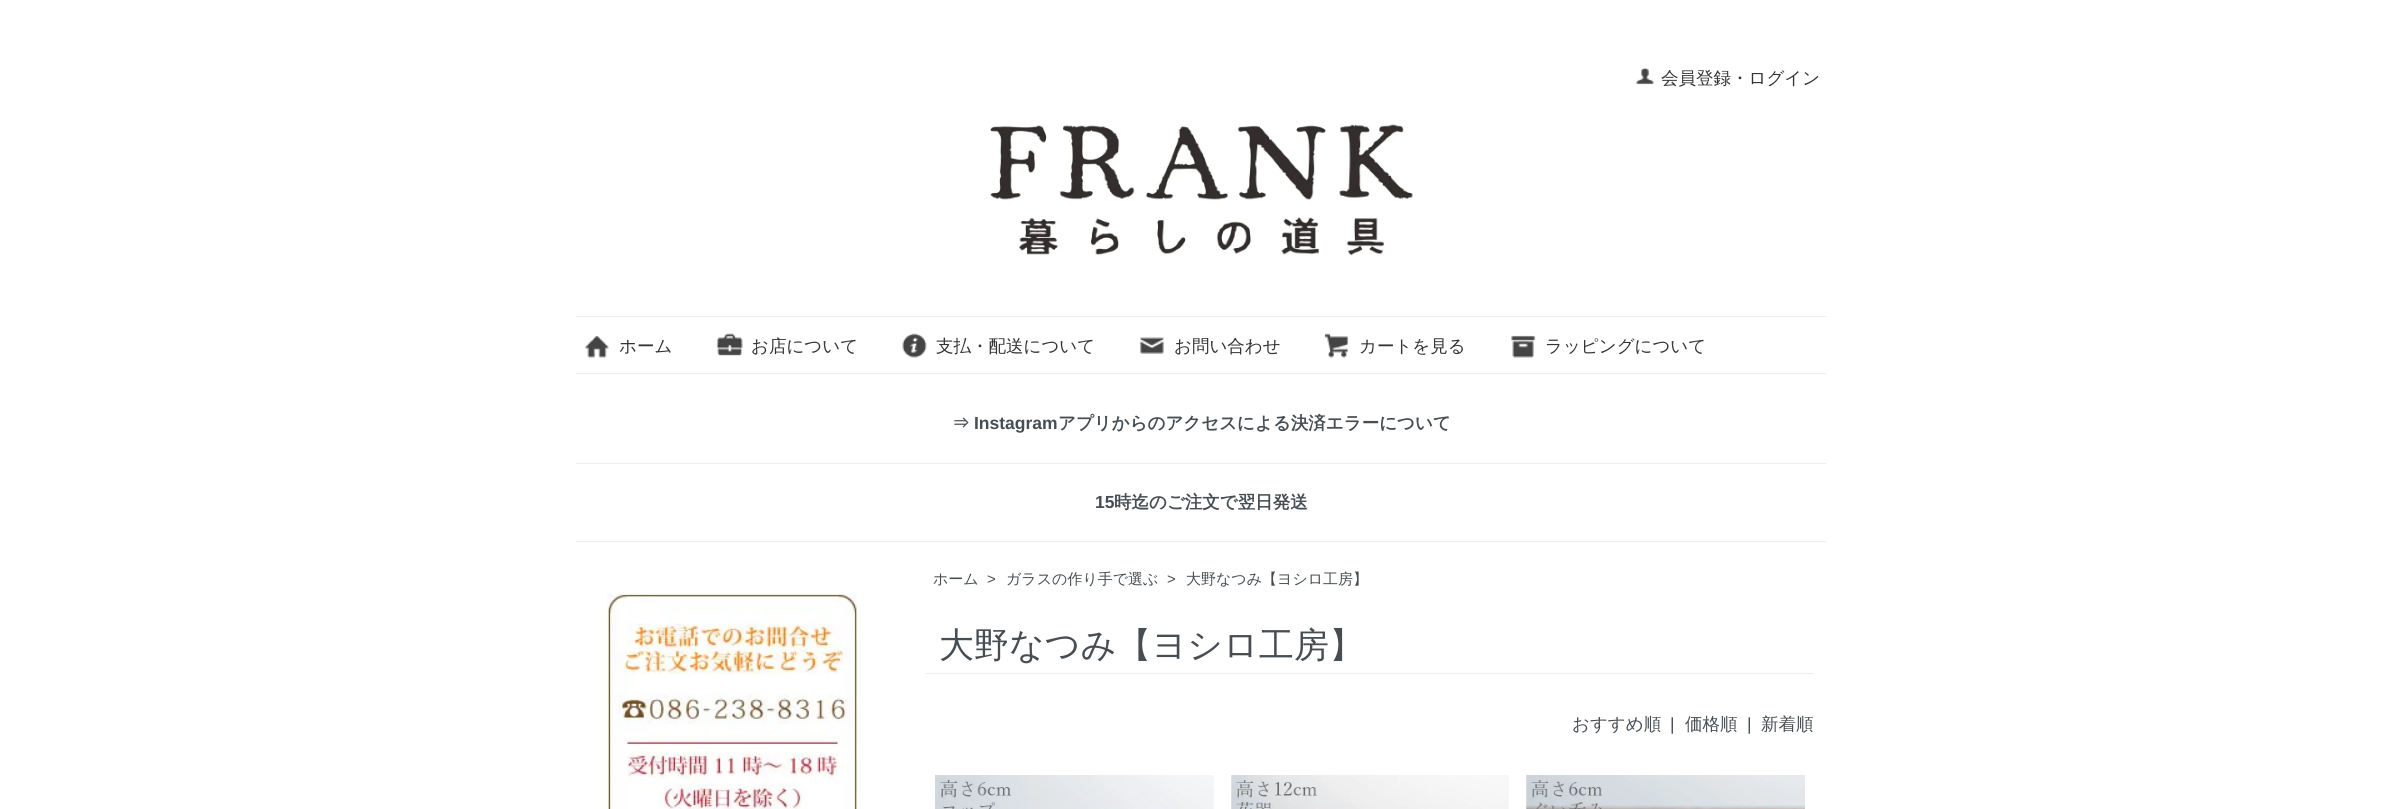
#include <cairo.h>
#include <math.h>
#include <stddef.h>


static void picture(cairo_t *cr, const char *path, double x, double y, double w, double h) {
    cairo_surface_t *image = cairo_image_surface_create_from_png(path);
    cairo_save(cr);
    cairo_set_source_surface(cr, image, x, y);
    cairo_rectangle(cr, x, y, w, h);
    cairo_fill(cr);
    cairo_restore(cr);
    cairo_surface_destroy(image);
}

int main(void) {
    cairo_surface_t *surface = cairo_image_surface_create(CAIRO_FORMAT_RGB24, 2402, 809);
    cairo_t *cr = cairo_create(surface);
    cairo_font_options_t *options = cairo_font_options_create();
    cairo_font_options_set_hint_metrics(options, CAIRO_HINT_METRICS_OFF);
    cairo_font_options_set_hint_style(options, CAIRO_HINT_STYLE_NONE);
    cairo_set_font_options(cr, options);
    cairo_set_miter_limit(cr, 4);
    cairo_set_source_rgb(cr, 1, 1, 1);
    cairo_paint(cr);
    picture(cr, "img1.png", 1636, 67, 18, 18);
    cairo_select_font_face(cr, "WenQuanYi Zen Hei Medium", CAIRO_FONT_SLANT_NORMAL, CAIRO_FONT_WEIGHT_NORMAL);
    cairo_set_font_size(cr, 17.5);
    cairo_set_source_rgb(cr, 0.2, 0.2, 0.2);
    cairo_move_to(cr, 1661, 84);
    cairo_show_text(cr, "会員登録・ログイン");
    picture(cr, "img2.png", 990, 124, 423, 132);
    cairo_set_source_rgb(cr, 0.933, 0.933, 0.933);
    cairo_rectangle(cr, 576, 316, 1250, 1);
    cairo_fill(cr);
    cairo_rectangle(cr, 576, 373, 1250, 1);
    cairo_fill(cr);
    picture(cr, "img3.png", 585, 335, 24, 23);
    cairo_set_source_rgb(cr, 0.2, 0.2, 0.2);
    cairo_move_to(cr, 619, 352);
    cairo_show_text(cr, "ホーム");
    picture(cr, "img4.png", 716, 333, 27, 23);
    cairo_move_to(cr, 751, 352);
    cairo_show_text(cr, "お店について");
    picture(cr, "img5.png", 902, 333, 25, 25);
    cairo_move_to(cr, 936, 352);
    cairo_show_text(cr, "支払・配送について");
    picture(cr, "img6.png", 1139, 337, 25, 17);
    cairo_move_to(cr, 1174, 352);
    cairo_show_text(cr, "お問い合わせ");
    picture(cr, "img7.png", 1324, 333, 25, 25);
    cairo_move_to(cr, 1359, 352);
    cairo_show_text(cr, "カートを見る");
    picture(cr, "img8.png", 1511, 335, 25, 23);
    cairo_move_to(cr, 1545, 352);
    cairo_show_text(cr, "ラッピングについて");
    cairo_select_font_face(cr, "WenQuanYi Zen Hei", CAIRO_FONT_SLANT_NORMAL, CAIRO_FONT_WEIGHT_BOLD);
    cairo_set_source_rgb(cr, 0.275, 0.306, 0.329);
    cairo_move_to(cr, 952, 429);
    cairo_show_text(cr, "⇒");
    cairo_select_font_face(cr, "Liberation Sans", CAIRO_FONT_SLANT_NORMAL, CAIRO_FONT_WEIGHT_BOLD);
    cairo_move_to(cr, 974, 429);
    cairo_show_text(cr, "Instagram");
    cairo_select_font_face(cr, "WenQuanYi Zen Hei", CAIRO_FONT_SLANT_NORMAL, CAIRO_FONT_WEIGHT_BOLD);
    cairo_move_to(cr, 1058, 429);
    cairo_show_text(cr, "アプリからのアクセスによる決済エラーについて");
    cairo_set_source_rgb(cr, 0.933, 0.933, 0.933);
    cairo_rectangle(cr, 576, 463, 1250, 1);
    cairo_fill(cr);
    cairo_select_font_face(cr, "Liberation Sans", CAIRO_FONT_SLANT_NORMAL, CAIRO_FONT_WEIGHT_BOLD);
    cairo_set_source_rgb(cr, 0.275, 0.306, 0.329);
    cairo_move_to(cr, 1095, 508);
    cairo_show_text(cr, "15");
    cairo_select_font_face(cr, "WenQuanYi Zen Hei", CAIRO_FONT_SLANT_NORMAL, CAIRO_FONT_WEIGHT_BOLD);
    cairo_move_to(cr, 1114, 508);
    cairo_show_text(cr, "時迄のご注文で翌日発送");
    cairo_set_source_rgb(cr, 0.933, 0.933, 0.933);
    cairo_rectangle(cr, 576, 541, 1250, 1);
    cairo_fill(cr);
    picture(cr, "img9.png", 607, 593, 251, 216);
    cairo_select_font_face(cr, "WenQuanYi Zen Hei Medium", CAIRO_FONT_SLANT_NORMAL, CAIRO_FONT_WEIGHT_NORMAL);
    cairo_set_font_size(cr, 15);
    cairo_set_source_rgb(cr, 0.275, 0.306, 0.329);
    cairo_move_to(cr, 933, 584);
    cairo_show_text(cr, "ホーム");
    cairo_select_font_face(cr, "Liberation Sans", CAIRO_FONT_SLANT_NORMAL, CAIRO_FONT_WEIGHT_NORMAL);
    cairo_move_to(cr, 987, 584);
    cairo_show_text(cr, ">");
    cairo_select_font_face(cr, "WenQuanYi Zen Hei Medium", CAIRO_FONT_SLANT_NORMAL, CAIRO_FONT_WEIGHT_NORMAL);
    cairo_move_to(cr, 1006, 584);
    cairo_show_text(cr, "ガラスの作り手で選ぶ");
    cairo_select_font_face(cr, "Liberation Sans", CAIRO_FONT_SLANT_NORMAL, CAIRO_FONT_WEIGHT_NORMAL);
    cairo_move_to(cr, 1167, 584);
    cairo_show_text(cr, ">");
    cairo_select_font_face(cr, "WenQuanYi Zen Hei Medium", CAIRO_FONT_SLANT_NORMAL, CAIRO_FONT_WEIGHT_NORMAL);
    cairo_move_to(cr, 1186, 584);
    cairo_show_text(cr, "大野なつみ【ヨシロ工房】");
    cairo_set_source_rgb(cr, 0.933, 0.933, 0.933);
    cairo_rectangle(cr, 926, 673, 888, 1);
    cairo_fill(cr);
    cairo_set_font_size(cr, 35);
    cairo_set_source_rgb(cr, 0.275, 0.306, 0.329);
    cairo_move_to(cr, 939, 657);
    cairo_show_text(cr, "大野なつみ【ヨシロ工房】");
    cairo_set_font_size(cr, 17.5);
    cairo_move_to(cr, 1572, 730);
    cairo_show_text(cr, "おすすめ順");
    cairo_select_font_face(cr, "Liberation Sans", CAIRO_FONT_SLANT_NORMAL, CAIRO_FONT_WEIGHT_NORMAL);
    cairo_move_to(cr, 1670, 730);
    cairo_show_text(cr, "|");
    cairo_select_font_face(cr, "WenQuanYi Zen Hei Medium", CAIRO_FONT_SLANT_NORMAL, CAIRO_FONT_WEIGHT_NORMAL);
    cairo_move_to(cr, 1685, 730);
    cairo_show_text(cr, "価格順");
    cairo_select_font_face(cr, "Liberation Sans", CAIRO_FONT_SLANT_NORMAL, CAIRO_FONT_WEIGHT_NORMAL);
    cairo_move_to(cr, 1747, 730);
    cairo_show_text(cr, "|");
    cairo_select_font_face(cr, "WenQuanYi Zen Hei Medium", CAIRO_FONT_SLANT_NORMAL, CAIRO_FONT_WEIGHT_NORMAL);
    cairo_move_to(cr, 1761, 730);
    cairo_show_text(cr, "新着順");
    picture(cr, "img10.png", 935, 775, 279, 34);
    picture(cr, "img11.png", 1231, 775, 278, 34);
    picture(cr, "img12.png", 1526, 775, 279, 34);
    cairo_surface_write_to_png(surface, "page.png");
    cairo_font_options_destroy(options);
    cairo_destroy(cr);
    cairo_surface_destroy(surface);
    return 0;
}
